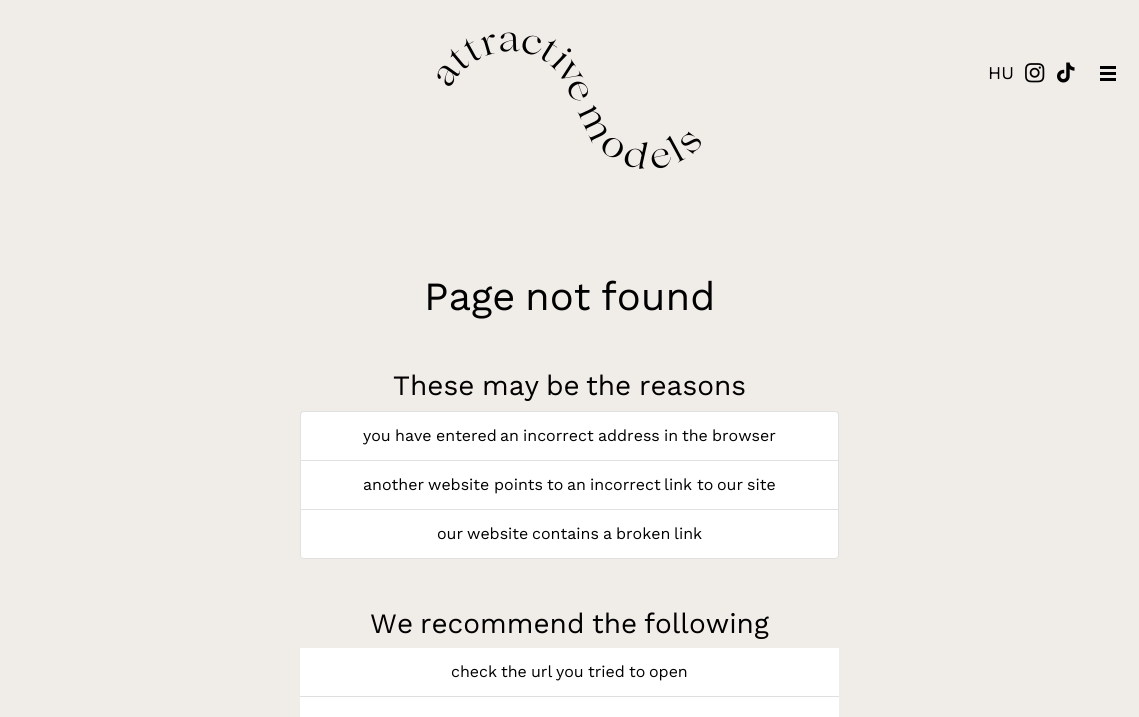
#include <cairo.h>
#include <math.h>
#include <stddef.h>


static void picture(cairo_t *cr, const char *path, double x, double y, double w, double h) {
    cairo_surface_t *image = cairo_image_surface_create_from_png(path);
    cairo_save(cr);
    cairo_set_source_surface(cr, image, x, y);
    cairo_rectangle(cr, x, y, w, h);
    cairo_fill(cr);
    cairo_restore(cr);
    cairo_surface_destroy(image);
}

int main(void) {
    cairo_surface_t *surface = cairo_image_surface_create(CAIRO_FORMAT_RGB24, 1139, 717);
    cairo_t *cr = cairo_create(surface);
    cairo_font_options_t *options = cairo_font_options_create();
    cairo_font_options_set_hint_metrics(options, CAIRO_HINT_METRICS_OFF);
    cairo_font_options_set_hint_style(options, CAIRO_HINT_STYLE_NONE);
    cairo_set_font_options(cr, options);
    cairo_set_miter_limit(cr, 4);
    cairo_set_source_rgb(cr, 0.941, 0.922, 0.91);
    cairo_paint(cr);
    picture(cr, "img1.png", 437, 32, 264, 137);
    cairo_select_font_face(cr, "Work Sans", CAIRO_FONT_SLANT_NORMAL, CAIRO_FONT_WEIGHT_NORMAL);
    cairo_set_font_size(cr, 18);
    cairo_set_source_rgb(cr, 0, 0, 0);
    cairo_move_to(cr, 988, 79);
    cairo_show_text(cr, "HU");
    picture(cr, "img2.png", 1025, 63, 20, 20);
    picture(cr, "img3.png", 1057, 62, 18, 21);
    cairo_rectangle(cr, 1100, 66, 16, 3);
    cairo_fill(cr);
    cairo_rectangle(cr, 1100, 72, 16, 3);
    cairo_fill(cr);
    cairo_rectangle(cr, 1100, 78, 16, 3);
    cairo_fill(cr);
    cairo_set_font_size(cr, 40);
    cairo_move_to(cr, 424, 310);
    cairo_show_text(cr, "Page");
    cairo_move_to(cr, 525, 310);
    cairo_show_text(cr, "not");
    cairo_move_to(cr, 601, 310);
    cairo_show_text(cr, "found");
    cairo_set_font_size(cr, 28);
    cairo_move_to(cr, 393, 395);
    cairo_show_text(cr, "These");
    cairo_move_to(cr, 482, 395);
    cairo_show_text(cr, "may");
    cairo_move_to(cr, 546, 395);
    cairo_show_text(cr, "be");
    cairo_move_to(cr, 586, 395);
    cairo_show_text(cr, "the");
    cairo_move_to(cr, 639, 395);
    cairo_show_text(cr, "reasons");
    cairo_set_source_rgb(cr, 1, 1, 1);
    cairo_new_path(cr);
    cairo_move_to(cr, 304, 411);
    cairo_line_to(cr, 835, 411);
    cairo_curve_to(cr, 837, 411, 839, 413, 839, 415);
    cairo_line_to(cr, 839, 461);
    cairo_line_to(cr, 300, 461);
    cairo_line_to(cr, 300, 415);
    cairo_curve_to(cr, 300, 413, 302, 411, 304, 411);
    cairo_close_path(cr);
    cairo_fill(cr);
    cairo_new_path(cr);
    cairo_move_to(cr, 304, 411.5);
    cairo_line_to(cr, 835, 411.5);
    cairo_curve_to(cr, 837, 411.5, 838.5, 413, 838.5, 415);
    cairo_line_to(cr, 838.5, 460.5);
    cairo_line_to(cr, 300.5, 460.5);
    cairo_line_to(cr, 300.5, 415);
    cairo_curve_to(cr, 300.5, 413, 302, 411.5, 304, 411.5);
    cairo_close_path(cr);
    cairo_set_source_rgba(cr, 0, 0, 0, 0.12);
    cairo_set_line_width(cr, 1);
    cairo_stroke(cr);
    cairo_set_font_size(cr, 16);
    cairo_set_source_rgb(cr, 0, 0, 0);
    cairo_move_to(cr, 363, 441);
    cairo_show_text(cr, "you");
    cairo_move_to(cr, 395, 441);
    cairo_show_text(cr, "have");
    cairo_move_to(cr, 436, 441);
    cairo_show_text(cr, "entered");
    cairo_move_to(cr, 500, 441);
    cairo_show_text(cr, "an");
    cairo_move_to(cr, 523, 441);
    cairo_show_text(cr, "incorrect");
    cairo_move_to(cr, 598, 441);
    cairo_show_text(cr, "address");
    cairo_move_to(cr, 664, 441);
    cairo_show_text(cr, "in");
    cairo_move_to(cr, 682, 441);
    cairo_show_text(cr, "the");
    cairo_move_to(cr, 712, 441);
    cairo_show_text(cr, "browser");
    cairo_set_source_rgb(cr, 1, 1, 1);
    cairo_rectangle(cr, 300, 461, 539, 49);
    cairo_fill(cr);
    cairo_set_source_rgb(cr, 0.875, 0.875, 0.875);
    cairo_new_path(cr);
    cairo_move_to(cr, 839, 461);
    cairo_line_to(cr, 839, 510);
    cairo_line_to(cr, 838, 509);
    cairo_line_to(cr, 838, 461);
    cairo_close_path(cr);
    cairo_fill(cr);
    cairo_set_source_rgba(cr, 0, 0, 0, 0.12);
    cairo_new_path(cr);
    cairo_move_to(cr, 839, 510);
    cairo_line_to(cr, 300, 510);
    cairo_line_to(cr, 301, 509);
    cairo_line_to(cr, 838, 509);
    cairo_close_path(cr);
    cairo_fill(cr);
    cairo_new_path(cr);
    cairo_move_to(cr, 300, 510);
    cairo_line_to(cr, 300, 461);
    cairo_line_to(cr, 301, 461);
    cairo_line_to(cr, 301, 509);
    cairo_close_path(cr);
    cairo_fill(cr);
    cairo_set_source_rgb(cr, 0, 0, 0);
    cairo_move_to(cr, 363, 490);
    cairo_show_text(cr, "another");
    cairo_move_to(cr, 428, 490);
    cairo_show_text(cr, "website");
    cairo_move_to(cr, 494, 490);
    cairo_show_text(cr, "points");
    cairo_move_to(cr, 547, 490);
    cairo_show_text(cr, "to");
    cairo_move_to(cr, 567, 490);
    cairo_show_text(cr, "an");
    cairo_move_to(cr, 590, 490);
    cairo_show_text(cr, "incorrect");
    cairo_move_to(cr, 664, 490);
    cairo_show_text(cr, "link");
    cairo_move_to(cr, 697, 490);
    cairo_show_text(cr, "to");
    cairo_move_to(cr, 717, 490);
    cairo_show_text(cr, "our");
    cairo_move_to(cr, 747, 490);
    cairo_show_text(cr, "site");
    cairo_set_source_rgb(cr, 1, 1, 1);
    cairo_new_path(cr);
    cairo_move_to(cr, 300, 510);
    cairo_line_to(cr, 839, 510);
    cairo_line_to(cr, 839, 555);
    cairo_curve_to(cr, 839, 557, 837, 559, 835, 559);
    cairo_line_to(cr, 304, 559);
    cairo_curve_to(cr, 302, 559, 300, 557, 300, 555);
    cairo_close_path(cr);
    cairo_fill(cr);
    cairo_set_source_rgba(cr, 0, 0, 0, 0.12);
    cairo_set_fill_rule(cr, CAIRO_FILL_RULE_EVEN_ODD);
    cairo_new_path(cr);
    cairo_move_to(cr, 300, 510);
    cairo_line_to(cr, 839, 510);
    cairo_line_to(cr, 839, 555);
    cairo_curve_to(cr, 839, 557, 837, 559, 835, 559);
    cairo_line_to(cr, 304, 559);
    cairo_curve_to(cr, 302, 559, 300, 557, 300, 555);
    cairo_close_path(cr);
    cairo_move_to(cr, 301, 510);
    cairo_line_to(cr, 838, 510);
    cairo_line_to(cr, 838, 555);
    cairo_curve_to(cr, 838, 557, 837, 558, 835, 558);
    cairo_line_to(cr, 304, 558);
    cairo_curve_to(cr, 302, 558, 301, 557, 301, 555);
    cairo_close_path(cr);
    cairo_fill(cr);
    cairo_set_source_rgb(cr, 0, 0, 0);
    cairo_move_to(cr, 437, 539);
    cairo_show_text(cr, "our");
    cairo_move_to(cr, 467, 539);
    cairo_show_text(cr, "website");
    cairo_move_to(cr, 532, 539);
    cairo_show_text(cr, "contains");
    cairo_move_to(cr, 603, 539);
    cairo_show_text(cr, "a");
    cairo_move_to(cr, 616, 539);
    cairo_show_text(cr, "broken");
    cairo_move_to(cr, 674, 539);
    cairo_show_text(cr, "link");
    cairo_set_font_size(cr, 28);
    cairo_move_to(cr, 370, 633);
    cairo_show_text(cr, "We");
    cairo_move_to(cr, 420, 633);
    cairo_show_text(cr, "recommend");
    cairo_move_to(cr, 592, 633);
    cairo_show_text(cr, "the");
    cairo_move_to(cr, 644, 633);
    cairo_show_text(cr, "following");
    cairo_set_source_rgb(cr, 1, 1, 1);
    cairo_rectangle(cr, 300, 648, 539, 48);
    cairo_fill(cr);
    cairo_set_source_rgb(cr, 0.875, 0.875, 0.875);
    cairo_rectangle(cr, 300, 696, 539, 1);
    cairo_fill(cr);
    cairo_set_font_size(cr, 16);
    cairo_set_source_rgb(cr, 0, 0, 0);
    cairo_move_to(cr, 451, 677);
    cairo_show_text(cr, "check");
    cairo_move_to(cr, 501, 677);
    cairo_show_text(cr, "the");
    cairo_move_to(cr, 531, 677);
    cairo_show_text(cr, "url");
    cairo_move_to(cr, 556, 677);
    cairo_show_text(cr, "you");
    cairo_move_to(cr, 588, 677);
    cairo_show_text(cr, "tried");
    cairo_move_to(cr, 629, 677);
    cairo_show_text(cr, "to");
    cairo_move_to(cr, 649, 677);
    cairo_show_text(cr, "open");
    cairo_set_source_rgb(cr, 1, 1, 1);
    cairo_rectangle(cr, 300, 697, 539, 20);
    cairo_fill(cr);
    cairo_surface_write_to_png(surface, "page.png");
    cairo_font_options_destroy(options);
    cairo_destroy(cr);
    cairo_surface_destroy(surface);
    return 0;
}
